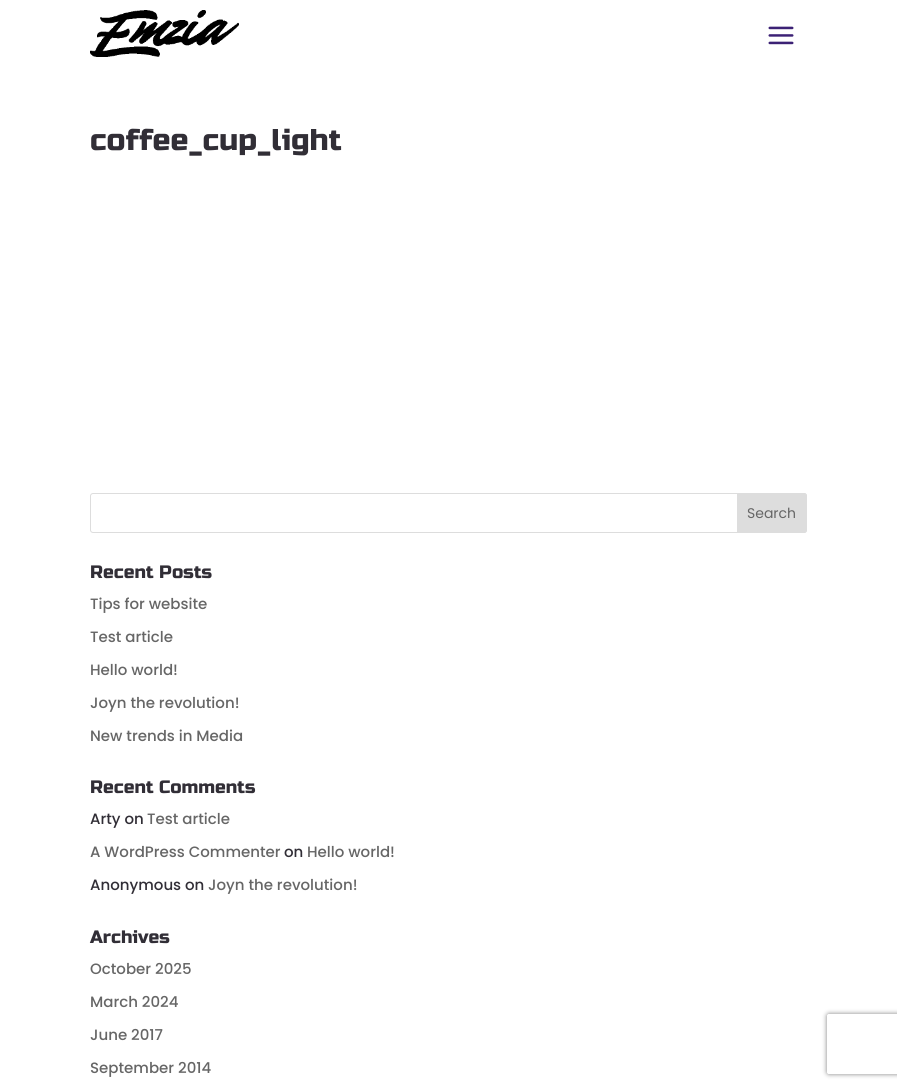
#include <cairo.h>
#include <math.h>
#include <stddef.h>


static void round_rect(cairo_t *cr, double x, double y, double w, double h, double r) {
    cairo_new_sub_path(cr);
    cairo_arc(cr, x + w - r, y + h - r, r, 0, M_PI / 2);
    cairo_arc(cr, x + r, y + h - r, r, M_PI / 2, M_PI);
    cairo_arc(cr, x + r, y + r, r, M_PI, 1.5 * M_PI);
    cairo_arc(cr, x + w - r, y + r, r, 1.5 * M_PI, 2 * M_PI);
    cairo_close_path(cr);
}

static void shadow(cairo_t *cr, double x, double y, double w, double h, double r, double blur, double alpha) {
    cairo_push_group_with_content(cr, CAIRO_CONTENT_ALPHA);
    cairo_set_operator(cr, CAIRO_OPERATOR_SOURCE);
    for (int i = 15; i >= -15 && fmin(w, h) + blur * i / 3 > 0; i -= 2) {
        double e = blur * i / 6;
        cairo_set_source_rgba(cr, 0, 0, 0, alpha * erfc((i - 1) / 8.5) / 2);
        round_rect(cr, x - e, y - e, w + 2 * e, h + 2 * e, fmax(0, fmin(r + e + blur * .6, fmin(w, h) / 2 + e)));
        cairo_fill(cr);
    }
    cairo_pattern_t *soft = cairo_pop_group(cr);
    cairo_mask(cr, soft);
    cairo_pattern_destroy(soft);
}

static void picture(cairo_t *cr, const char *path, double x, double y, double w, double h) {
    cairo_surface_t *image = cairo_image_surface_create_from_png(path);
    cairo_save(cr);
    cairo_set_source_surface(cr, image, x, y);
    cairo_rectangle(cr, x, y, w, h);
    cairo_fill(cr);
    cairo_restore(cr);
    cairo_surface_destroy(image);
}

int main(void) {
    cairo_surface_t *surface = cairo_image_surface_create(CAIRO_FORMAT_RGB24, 897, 1088);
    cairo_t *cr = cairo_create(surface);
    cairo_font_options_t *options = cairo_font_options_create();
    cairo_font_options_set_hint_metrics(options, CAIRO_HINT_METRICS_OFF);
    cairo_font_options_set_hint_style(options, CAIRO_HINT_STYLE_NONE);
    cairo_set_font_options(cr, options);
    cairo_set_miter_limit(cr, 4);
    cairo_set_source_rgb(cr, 1, 1, 1);
    cairo_paint(cr);
    picture(cr, "img1.png", 90, 10, 149, 47);
    picture(cr, "img2.png", 768, 26, 26, 19);
    cairo_select_font_face(cr, "Russo One", CAIRO_FONT_SLANT_NORMAL, CAIRO_FONT_WEIGHT_NORMAL);
    cairo_set_font_size(cr, 30);
    cairo_set_source_rgb(cr, 0.192, 0.18, 0.212);
    cairo_move_to(cr, 90, 150);
    cairo_show_text(cr, "coffee_cup_light");
    round_rect(cr, 90.5, 493.5, 716, 39, 2.5);
    cairo_set_source_rgb(cr, 0.867, 0.867, 0.867);
    cairo_set_line_width(cr, 1);
    cairo_stroke(cr);
    cairo_new_path(cr);
    cairo_move_to(cr, 737.5, 493.5);
    cairo_line_to(cr, 804, 493.5);
    cairo_curve_to(cr, 805.5, 493.5, 806.5, 494.5, 806.5, 496);
    cairo_line_to(cr, 806.5, 530);
    cairo_curve_to(cr, 806.5, 531.5, 805.5, 532.5, 804, 532.5);
    cairo_line_to(cr, 737.5, 532.5);
    cairo_close_path(cr);
    cairo_fill_preserve(cr);
    cairo_stroke(cr);
    cairo_select_font_face(cr, "Poppins", CAIRO_FONT_SLANT_NORMAL, CAIRO_FONT_WEIGHT_NORMAL);
    cairo_set_font_size(cr, 14);
    cairo_set_source_rgb(cr, 0.4, 0.4, 0.4);
    cairo_move_to(cr, 747, 518);
    cairo_show_text(cr, "Search");
    cairo_select_font_face(cr, "Russo One", CAIRO_FONT_SLANT_NORMAL, CAIRO_FONT_WEIGHT_NORMAL);
    cairo_set_font_size(cr, 18);
    cairo_set_source_rgb(cr, 0.192, 0.18, 0.212);
    cairo_move_to(cr, 90, 578);
    cairo_show_text(cr, "Recent Posts");
    cairo_select_font_face(cr, "Poppins Medium", CAIRO_FONT_SLANT_NORMAL, CAIRO_FONT_WEIGHT_NORMAL);
    cairo_set_font_size(cr, 15);
    cairo_set_source_rgb(cr, 0.4, 0.4, 0.4);
    cairo_move_to(cr, 90, 609);
    cairo_show_text(cr, "Tips for website");
    cairo_move_to(cr, 90, 642);
    cairo_show_text(cr, "Test article");
    cairo_move_to(cr, 90, 675);
    cairo_show_text(cr, "Hello world!");
    cairo_move_to(cr, 90, 708);
    cairo_show_text(cr, "Joyn the revolution!");
    cairo_move_to(cr, 90, 741);
    cairo_show_text(cr, "New trends in Media");
    cairo_select_font_face(cr, "Russo One", CAIRO_FONT_SLANT_NORMAL, CAIRO_FONT_WEIGHT_NORMAL);
    cairo_set_font_size(cr, 18);
    cairo_set_source_rgb(cr, 0.192, 0.18, 0.212);
    cairo_move_to(cr, 90, 793);
    cairo_show_text(cr, "Recent Comments");
    cairo_select_font_face(cr, "Poppins Medium", CAIRO_FONT_SLANT_NORMAL, CAIRO_FONT_WEIGHT_NORMAL);
    cairo_set_font_size(cr, 15);
    cairo_move_to(cr, 90, 824);
    cairo_show_text(cr, "Arty on");
    cairo_set_source_rgb(cr, 0.4, 0.4, 0.4);
    cairo_move_to(cr, 147, 824);
    cairo_show_text(cr, "Test article");
    cairo_move_to(cr, 90, 857);
    cairo_show_text(cr, "A WordPress Commenter");
    cairo_set_source_rgb(cr, 0.192, 0.18, 0.212);
    cairo_move_to(cr, 284, 857);
    cairo_show_text(cr, "on");
    cairo_set_source_rgb(cr, 0.4, 0.4, 0.4);
    cairo_move_to(cr, 307, 857);
    cairo_show_text(cr, "Hello world!");
    cairo_set_source_rgb(cr, 0.192, 0.18, 0.212);
    cairo_move_to(cr, 90, 890);
    cairo_show_text(cr, "Anonymous on");
    cairo_set_source_rgb(cr, 0.4, 0.4, 0.4);
    cairo_move_to(cr, 208, 890);
    cairo_show_text(cr, "Joyn the revolution!");
    cairo_select_font_face(cr, "Russo One", CAIRO_FONT_SLANT_NORMAL, CAIRO_FONT_WEIGHT_NORMAL);
    cairo_set_font_size(cr, 18);
    cairo_set_source_rgb(cr, 0.192, 0.18, 0.212);
    cairo_move_to(cr, 90, 943);
    cairo_show_text(cr, "Archives");
    cairo_select_font_face(cr, "Poppins Medium", CAIRO_FONT_SLANT_NORMAL, CAIRO_FONT_WEIGHT_NORMAL);
    cairo_set_font_size(cr, 15);
    cairo_set_source_rgb(cr, 0.4, 0.4, 0.4);
    cairo_move_to(cr, 90, 974);
    cairo_show_text(cr, "October 2025");
    cairo_move_to(cr, 90, 1007);
    cairo_show_text(cr, "March 2024");
    cairo_move_to(cr, 90, 1040);
    cairo_show_text(cr, "June 2017");
    cairo_move_to(cr, 90, 1073);
    cairo_show_text(cr, "September 2014");
    cairo_save(cr);
    cairo_set_fill_rule(cr, CAIRO_FILL_RULE_EVEN_ODD);
    cairo_new_path(cr);
    cairo_move_to(cr, 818, 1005);
    cairo_line_to(cr, 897, 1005);
    cairo_line_to(cr, 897, 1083);
    cairo_line_to(cr, 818, 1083);
    cairo_close_path(cr);
    cairo_move_to(cr, 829, 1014);
    cairo_line_to(cr, 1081, 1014);
    cairo_curve_to(cr, 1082, 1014, 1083, 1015, 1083, 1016);
    cairo_line_to(cr, 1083, 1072);
    cairo_curve_to(cr, 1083, 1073, 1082, 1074, 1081, 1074);
    cairo_line_to(cr, 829, 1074);
    cairo_curve_to(cr, 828, 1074, 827, 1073, 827, 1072);
    cairo_line_to(cr, 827, 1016);
    cairo_curve_to(cr, 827, 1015, 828, 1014, 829, 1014);
    cairo_close_path(cr);
    cairo_clip(cr);
    cairo_set_source_rgb(cr, 0.502, 0.502, 0.502);
    shadow(cr, 827, 1014, 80, 60, 2, 2.5, 1);
    cairo_restore(cr);
    cairo_surface_write_to_png(surface, "page.png");
    cairo_font_options_destroy(options);
    cairo_destroy(cr);
    cairo_surface_destroy(surface);
    return 0;
}
